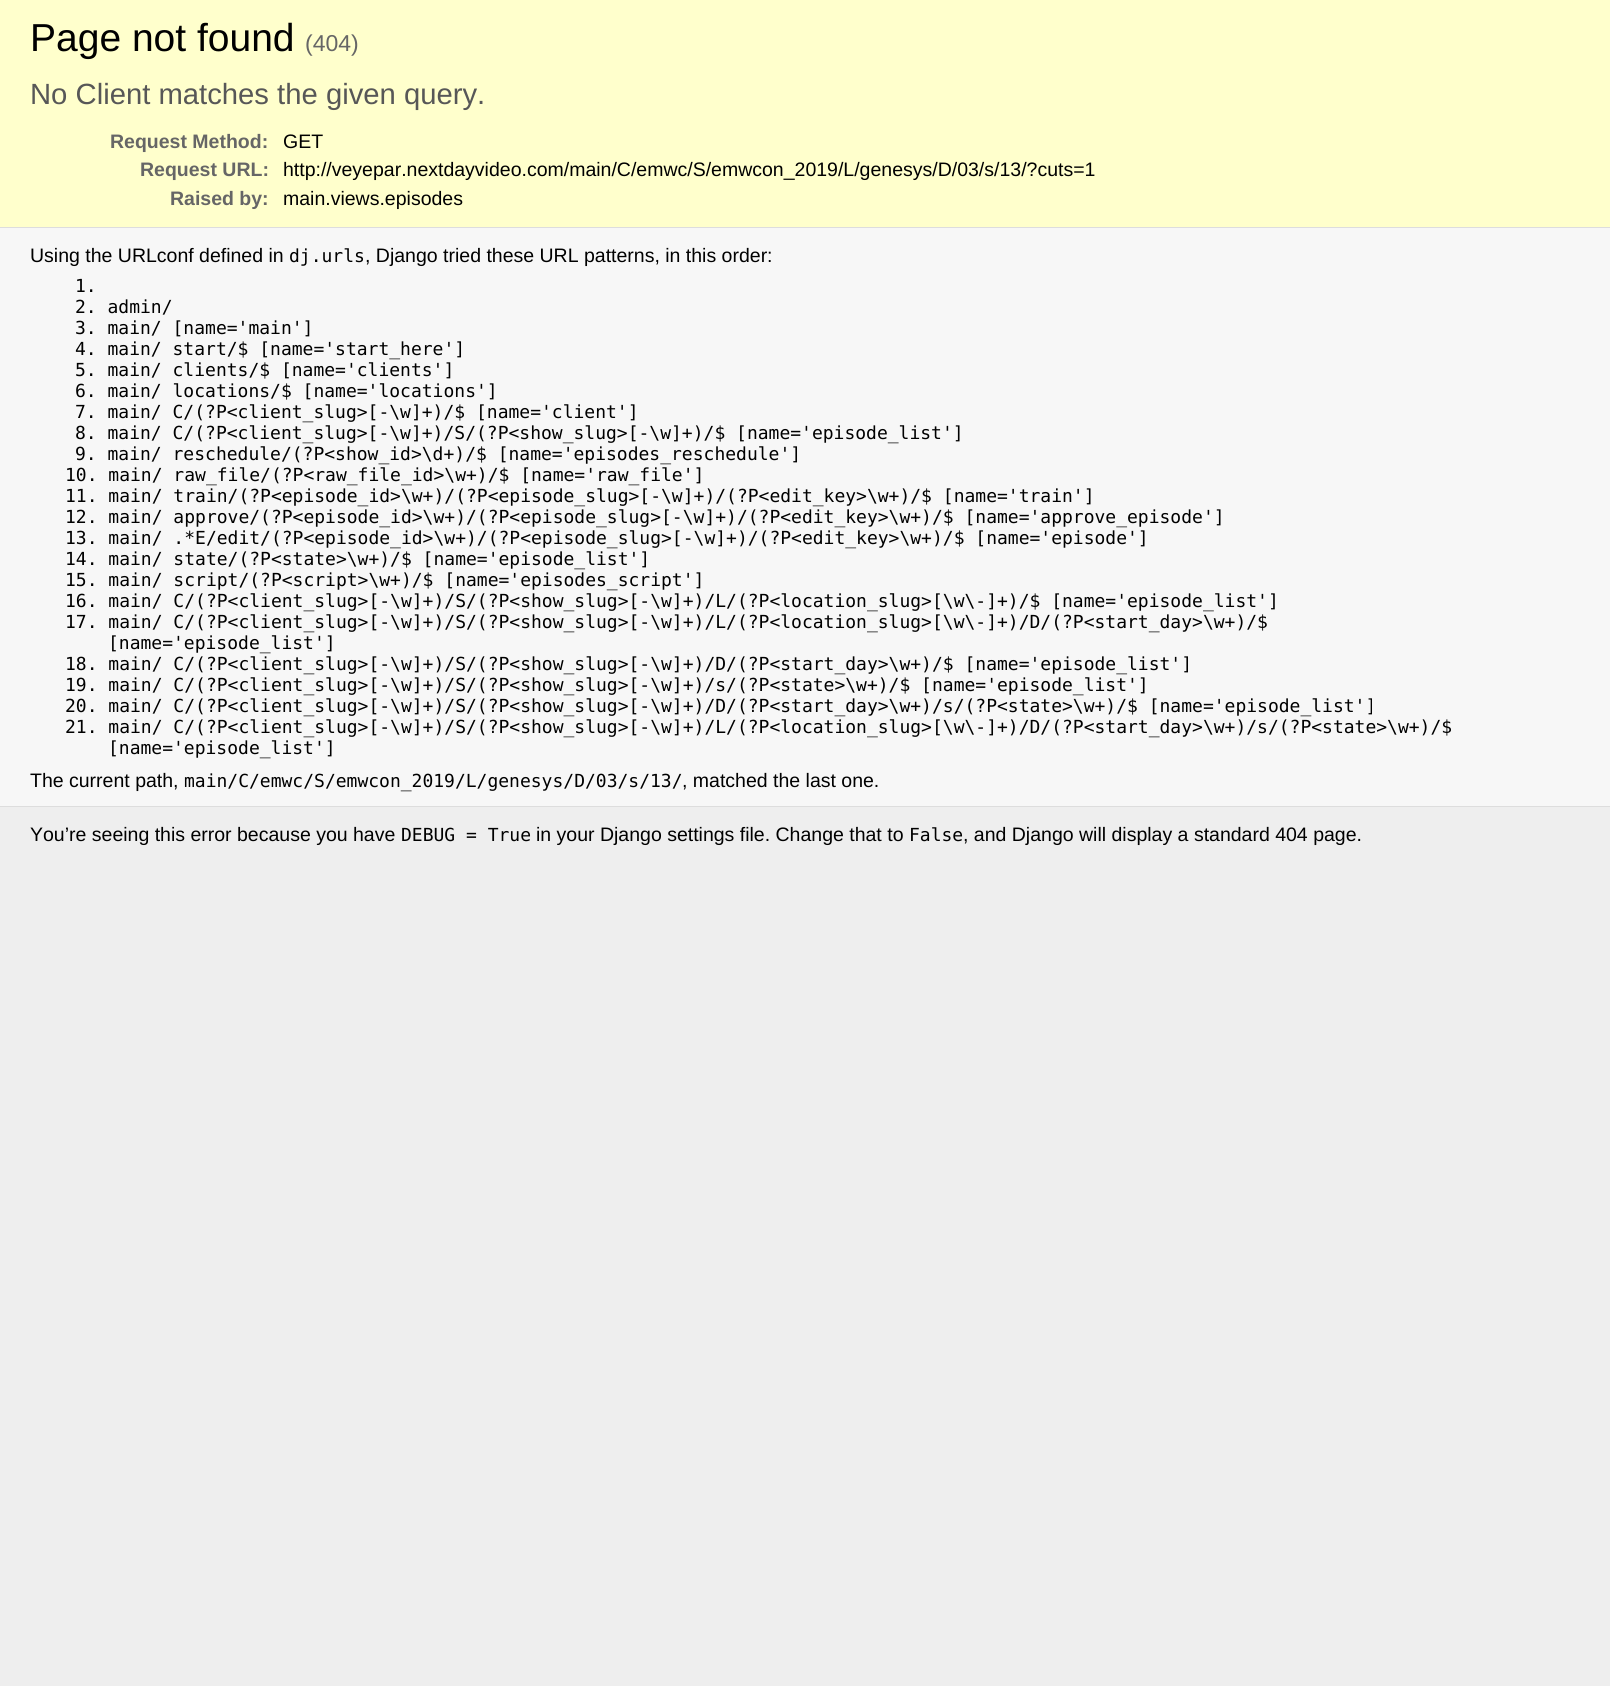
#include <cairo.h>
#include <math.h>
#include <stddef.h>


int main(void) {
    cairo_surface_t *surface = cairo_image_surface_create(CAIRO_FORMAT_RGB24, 1610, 1686);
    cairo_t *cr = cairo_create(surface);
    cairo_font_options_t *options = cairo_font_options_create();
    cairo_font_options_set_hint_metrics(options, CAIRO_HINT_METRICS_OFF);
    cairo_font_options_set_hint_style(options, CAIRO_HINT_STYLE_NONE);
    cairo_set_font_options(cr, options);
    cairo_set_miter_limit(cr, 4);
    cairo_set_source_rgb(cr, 0.933, 0.933, 0.933);
    cairo_paint(cr);
    cairo_set_source_rgb(cr, 1, 1, 0.8);
    cairo_rectangle(cr, 0, 0, 1610, 227);
    cairo_fill(cr);
    cairo_set_source_rgb(cr, 0.867, 0.867, 0.867);
    cairo_rectangle(cr, 0, 227, 1610, 1);
    cairo_fill(cr);
    cairo_select_font_face(cr, "Liberation Sans", CAIRO_FONT_SLANT_NORMAL, CAIRO_FONT_WEIGHT_NORMAL);
    cairo_set_font_size(cr, 39);
    cairo_set_source_rgb(cr, 0, 0, 0);
    cairo_move_to(cr, 30, 51);
    cairo_show_text(cr, "Page not found");
    cairo_set_font_size(cr, 23);
    cairo_set_source_rgb(cr, 0.4, 0.4, 0.4);
    cairo_move_to(cr, 305, 51);
    cairo_show_text(cr, "(404)");
    cairo_set_font_size(cr, 29.25);
    cairo_set_source_rgb(cr, 0.341, 0.341, 0.341);
    cairo_move_to(cr, 30, 104);
    cairo_show_text(cr, "No Client matches the given query.");
    cairo_select_font_face(cr, "Liberation Sans", CAIRO_FONT_SLANT_NORMAL, CAIRO_FONT_WEIGHT_BOLD);
    cairo_set_font_size(cr, 19.5);
    cairo_set_source_rgb(cr, 0.4, 0.4, 0.4);
    cairo_move_to(cr, 110, 148);
    cairo_show_text(cr, "Request Method:");
    cairo_select_font_face(cr, "Liberation Sans", CAIRO_FONT_SLANT_NORMAL, CAIRO_FONT_WEIGHT_NORMAL);
    cairo_set_source_rgb(cr, 0, 0, 0);
    cairo_move_to(cr, 283, 148);
    cairo_show_text(cr, "GET");
    cairo_select_font_face(cr, "Liberation Sans", CAIRO_FONT_SLANT_NORMAL, CAIRO_FONT_WEIGHT_BOLD);
    cairo_set_source_rgb(cr, 0.4, 0.4, 0.4);
    cairo_move_to(cr, 140, 176);
    cairo_show_text(cr, "Request URL:");
    cairo_select_font_face(cr, "Liberation Sans", CAIRO_FONT_SLANT_NORMAL, CAIRO_FONT_WEIGHT_NORMAL);
    cairo_set_source_rgb(cr, 0, 0, 0);
    cairo_move_to(cr, 283, 176);
    cairo_show_text(cr, "http://veyepar.nextdayvideo.com/main/C/emwc/S/emwcon_2019/L/genesys/D/03/s/13/?cuts=1");
    cairo_select_font_face(cr, "Liberation Sans", CAIRO_FONT_SLANT_NORMAL, CAIRO_FONT_WEIGHT_BOLD);
    cairo_set_source_rgb(cr, 0.4, 0.4, 0.4);
    cairo_move_to(cr, 170, 205);
    cairo_show_text(cr, "Raised by:");
    cairo_select_font_face(cr, "Liberation Sans", CAIRO_FONT_SLANT_NORMAL, CAIRO_FONT_WEIGHT_NORMAL);
    cairo_set_source_rgb(cr, 0, 0, 0);
    cairo_move_to(cr, 283, 205);
    cairo_show_text(cr, "main.views.episodes");
    cairo_set_source_rgb(cr, 0.965, 0.965, 0.965);
    cairo_rectangle(cr, 0, 228, 1610, 578);
    cairo_fill(cr);
    cairo_set_source_rgb(cr, 0.867, 0.867, 0.867);
    cairo_rectangle(cr, 0, 806, 1610, 1);
    cairo_fill(cr);
    cairo_set_source_rgb(cr, 0, 0, 0);
    cairo_move_to(cr, 30, 262);
    cairo_show_text(cr, "Using the URLconf defined in");
    cairo_select_font_face(cr, "DejaVu Sans Mono", CAIRO_FONT_SLANT_NORMAL, CAIRO_FONT_WEIGHT_NORMAL);
    cairo_set_font_size(cr, 18);
    cairo_move_to(cr, 289, 262);
    cairo_show_text(cr, "dj.urls");
    cairo_select_font_face(cr, "Liberation Sans", CAIRO_FONT_SLANT_NORMAL, CAIRO_FONT_WEIGHT_NORMAL);
    cairo_set_font_size(cr, 19.5);
    cairo_move_to(cr, 365, 262);
    cairo_show_text(cr, ", Django tried these URL patterns, in this order:");
    cairo_select_font_face(cr, "DejaVu Sans Mono", CAIRO_FONT_SLANT_NORMAL, CAIRO_FONT_WEIGHT_NORMAL);
    cairo_set_font_size(cr, 18);
    cairo_move_to(cr, 75, 292);
    cairo_show_text(cr, "1.");
    cairo_move_to(cr, 75, 313);
    cairo_show_text(cr, "2. admin/");
    cairo_move_to(cr, 75, 334);
    cairo_show_text(cr, "3. main/ [name='main']");
    cairo_move_to(cr, 75, 355);
    cairo_show_text(cr, "4. main/ start/$ [name='start_here']");
    cairo_move_to(cr, 75, 376);
    cairo_show_text(cr, "5. main/ clients/$ [name='clients']");
    cairo_move_to(cr, 75, 397);
    cairo_show_text(cr, "6. main/ locations/$ [name='locations']");
    cairo_move_to(cr, 75, 418);
    cairo_show_text(cr, "7. main/ C/(?P<client_slug>[-\\w]+)/$ [name='client']");
    cairo_move_to(cr, 75, 439);
    cairo_show_text(cr, "8. main/ C/(?P<client_slug>[-\\w]+)/S/(?P<show_slug>[-\\w]+)/$ [name='episode_list']");
    cairo_move_to(cr, 75, 460);
    cairo_show_text(cr, "9. main/ reschedule/(?P<show_id>\\d+)/$ [name='episodes_reschedule']");
    cairo_move_to(cr, 65, 481);
    cairo_show_text(cr, "10. main/ raw_file/(?P<raw_file_id>\\w+)/$ [name='raw_file']");
    cairo_move_to(cr, 65, 502);
    cairo_show_text(cr, "11. main/ train/(?P<episode_id>\\w+)/(?P<episode_slug>[-\\w]+)/(?P<edit_key>\\w+)/$ [name='train']");
    cairo_move_to(cr, 65, 523);
    cairo_show_text(cr, "12. main/ approve/(?P<episode_id>\\w+)/(?P<episode_slug>[-\\w]+)/(?P<edit_key>\\w+)/$ [name='approve_episode']");
    cairo_move_to(cr, 65, 544);
    cairo_show_text(cr, "13. main/ .*E/edit/(?P<episode_id>\\w+)/(?P<episode_slug>[-\\w]+)/(?P<edit_key>\\w+)/$ [name='episode']");
    cairo_move_to(cr, 65, 565);
    cairo_show_text(cr, "14. main/ state/(?P<state>\\w+)/$ [name='episode_list']");
    cairo_move_to(cr, 65, 586);
    cairo_show_text(cr, "15. main/ script/(?P<script>\\w+)/$ [name='episodes_script']");
    cairo_move_to(cr, 65, 607);
    cairo_show_text(cr, "16. main/ C/(?P<client_slug>[-\\w]+)/S/(?P<show_slug>[-\\w]+)/L/(?P<location_slug>[\\w\\-]+)/$ [name='episode_list']");
    cairo_move_to(cr, 65, 628);
    cairo_show_text(cr, "17. main/ C/(?P<client_slug>[-\\w]+)/S/(?P<show_slug>[-\\w]+)/L/(?P<location_slug>[\\w\\-]+)/D/(?P<start_day>\\w+)/$");
    cairo_move_to(cr, 108, 649);
    cairo_show_text(cr, "[name='episode_list']");
    cairo_move_to(cr, 65, 670);
    cairo_show_text(cr, "18. main/ C/(?P<client_slug>[-\\w]+)/S/(?P<show_slug>[-\\w]+)/D/(?P<start_day>\\w+)/$ [name='episode_list']");
    cairo_move_to(cr, 65, 691);
    cairo_show_text(cr, "19. main/ C/(?P<client_slug>[-\\w]+)/S/(?P<show_slug>[-\\w]+)/s/(?P<state>\\w+)/$ [name='episode_list']");
    cairo_move_to(cr, 65, 712);
    cairo_show_text(cr, "20. main/ C/(?P<client_slug>[-\\w]+)/S/(?P<show_slug>[-\\w]+)/D/(?P<start_day>\\w+)/s/(?P<state>\\w+)/$ [name='episode_list']");
    cairo_move_to(cr, 65, 733);
    cairo_show_text(cr, "21. main/ C/(?P<client_slug>[-\\w]+)/S/(?P<show_slug>[-\\w]+)/L/(?P<location_slug>[\\w\\-]+)/D/(?P<start_day>\\w+)/s/(?P<state>\\w+)/$");
    cairo_move_to(cr, 108, 754);
    cairo_show_text(cr, "[name='episode_list']");
    cairo_select_font_face(cr, "Liberation Sans", CAIRO_FONT_SLANT_NORMAL, CAIRO_FONT_WEIGHT_NORMAL);
    cairo_set_font_size(cr, 19.5);
    cairo_move_to(cr, 30, 787);
    cairo_show_text(cr, "The current path,");
    cairo_select_font_face(cr, "DejaVu Sans Mono", CAIRO_FONT_SLANT_NORMAL, CAIRO_FONT_WEIGHT_NORMAL);
    cairo_set_font_size(cr, 18);
    cairo_move_to(cr, 184, 787);
    cairo_show_text(cr, "main/C/emwc/S/emwcon_2019/L/genesys/D/03/s/13/");
    cairo_select_font_face(cr, "Liberation Sans", CAIRO_FONT_SLANT_NORMAL, CAIRO_FONT_WEIGHT_NORMAL);
    cairo_set_font_size(cr, 19.5);
    cairo_move_to(cr, 682, 787);
    cairo_show_text(cr, ", matched the last one.");
    cairo_move_to(cr, 30, 841);
    cairo_show_text(cr, "You’re seeing this error because you have");
    cairo_select_font_face(cr, "DejaVu Sans Mono", CAIRO_FONT_SLANT_NORMAL, CAIRO_FONT_WEIGHT_NORMAL);
    cairo_set_font_size(cr, 18);
    cairo_move_to(cr, 401, 841);
    cairo_show_text(cr, "DEBUG = True");
    cairo_select_font_face(cr, "Liberation Sans", CAIRO_FONT_SLANT_NORMAL, CAIRO_FONT_WEIGHT_NORMAL);
    cairo_set_font_size(cr, 19.5);
    cairo_move_to(cr, 536, 841);
    cairo_show_text(cr, "in your Django settings file. Change that to");
    cairo_select_font_face(cr, "DejaVu Sans Mono", CAIRO_FONT_SLANT_NORMAL, CAIRO_FONT_WEIGHT_NORMAL);
    cairo_set_font_size(cr, 18);
    cairo_move_to(cr, 909, 841);
    cairo_show_text(cr, "False");
    cairo_select_font_face(cr, "Liberation Sans", CAIRO_FONT_SLANT_NORMAL, CAIRO_FONT_WEIGHT_NORMAL);
    cairo_set_font_size(cr, 19.5);
    cairo_move_to(cr, 963, 841);
    cairo_show_text(cr, ", and Django will display a standard 404 page.");
    cairo_surface_write_to_png(surface, "page.png");
    cairo_font_options_destroy(options);
    cairo_destroy(cr);
    cairo_surface_destroy(surface);
    return 0;
}
